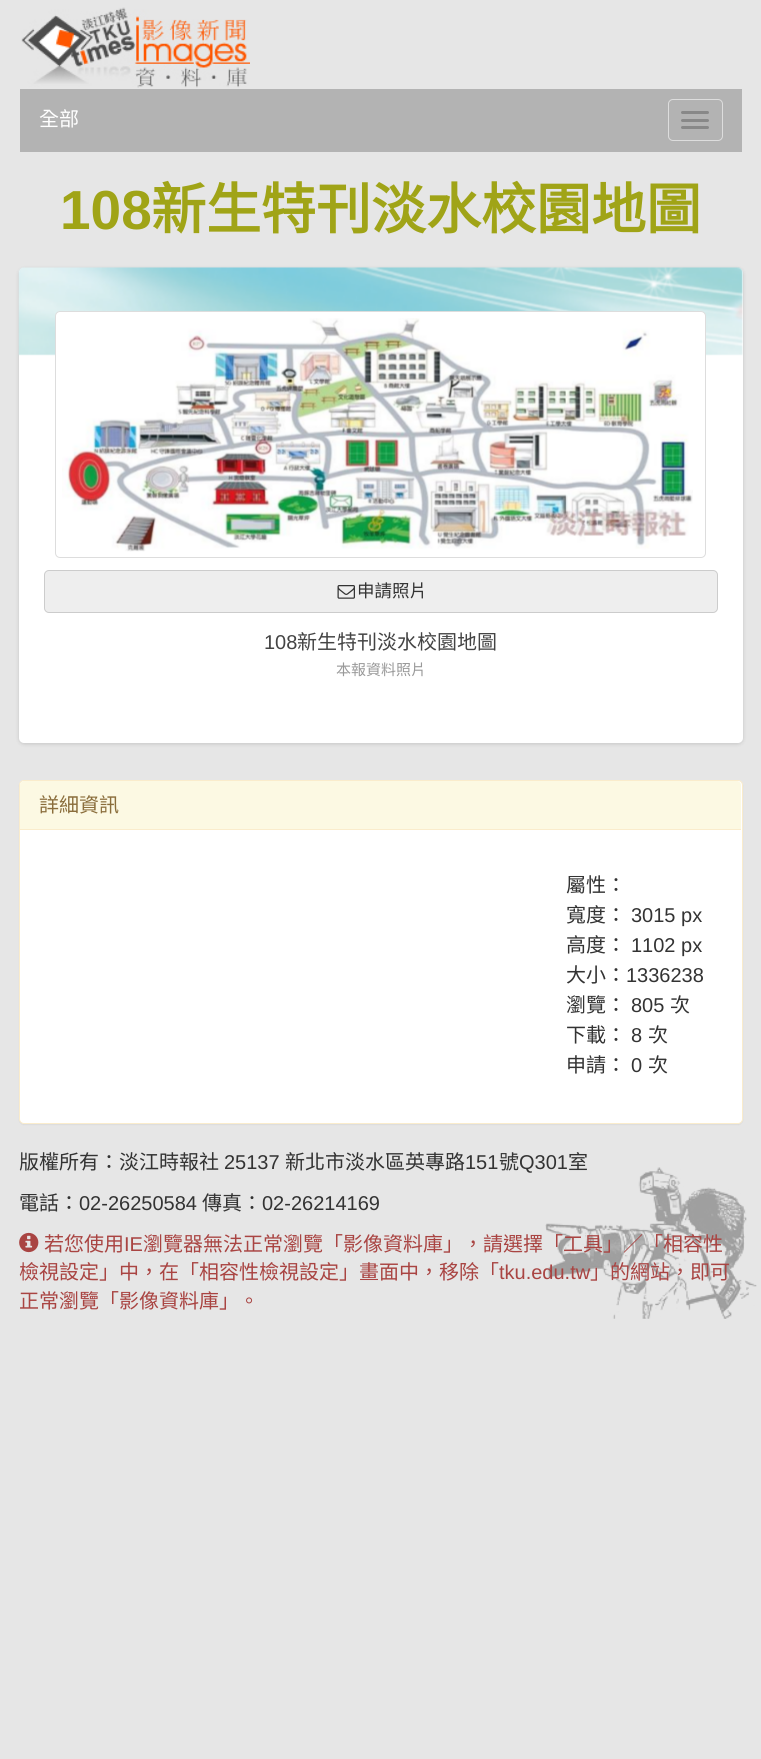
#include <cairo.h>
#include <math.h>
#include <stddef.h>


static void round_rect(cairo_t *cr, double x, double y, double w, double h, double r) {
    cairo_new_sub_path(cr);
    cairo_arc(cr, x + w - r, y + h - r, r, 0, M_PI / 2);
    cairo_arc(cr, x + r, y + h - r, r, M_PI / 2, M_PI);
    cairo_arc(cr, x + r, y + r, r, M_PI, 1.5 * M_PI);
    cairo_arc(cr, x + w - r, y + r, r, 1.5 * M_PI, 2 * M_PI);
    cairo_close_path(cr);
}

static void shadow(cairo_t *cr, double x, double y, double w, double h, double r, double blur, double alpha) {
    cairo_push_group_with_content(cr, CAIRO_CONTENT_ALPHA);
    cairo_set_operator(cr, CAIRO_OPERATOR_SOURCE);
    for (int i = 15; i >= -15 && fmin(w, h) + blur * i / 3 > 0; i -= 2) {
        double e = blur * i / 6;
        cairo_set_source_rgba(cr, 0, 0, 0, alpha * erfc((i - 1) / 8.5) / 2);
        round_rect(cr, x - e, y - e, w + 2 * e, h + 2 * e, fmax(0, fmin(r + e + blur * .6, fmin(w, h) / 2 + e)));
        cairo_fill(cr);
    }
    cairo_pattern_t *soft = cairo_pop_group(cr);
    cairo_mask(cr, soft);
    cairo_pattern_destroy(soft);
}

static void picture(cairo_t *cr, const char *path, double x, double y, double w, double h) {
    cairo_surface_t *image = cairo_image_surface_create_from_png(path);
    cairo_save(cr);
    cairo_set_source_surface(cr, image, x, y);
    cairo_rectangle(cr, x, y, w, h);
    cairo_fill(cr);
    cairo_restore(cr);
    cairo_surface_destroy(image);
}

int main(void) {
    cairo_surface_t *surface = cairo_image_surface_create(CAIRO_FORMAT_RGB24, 761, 1759);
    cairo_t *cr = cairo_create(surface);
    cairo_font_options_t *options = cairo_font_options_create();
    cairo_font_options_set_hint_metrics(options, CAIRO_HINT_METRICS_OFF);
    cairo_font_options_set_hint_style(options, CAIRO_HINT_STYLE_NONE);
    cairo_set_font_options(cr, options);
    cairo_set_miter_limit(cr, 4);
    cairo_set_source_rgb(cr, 0.902, 0.902, 0.902);
    cairo_paint(cr);
    picture(cr, "img1.png", 21, 7, 229, 81);
    cairo_set_source_rgb(cr, 0.702, 0.702, 0.702);
    cairo_rectangle(cr, 20, 89, 722, 63);
    cairo_fill(cr);
    cairo_select_font_face(cr, "Noto Sans CJK TC", CAIRO_FONT_SLANT_NORMAL, CAIRO_FONT_WEIGHT_NORMAL);
    cairo_set_font_size(cr, 20);
    cairo_set_source_rgb(cr, 1, 1, 1);
    cairo_move_to(cr, 39, 126);
    cairo_show_text(cr, "全部");
    round_rect(cr, 668.5, 99.5, 54, 41, 4.5);
    cairo_set_source_rgb(cr, 0.867, 0.867, 0.867);
    cairo_set_line_width(cr, 1);
    cairo_stroke(cr);
    cairo_set_source_rgb(cr, 0.533, 0.533, 0.533);
    round_rect(cr, 681, 111, 28, 3, 1.5);
    cairo_fill(cr);
    round_rect(cr, 681, 119, 28, 3, 1.5);
    cairo_fill(cr);
    round_rect(cr, 681, 126, 28, 3, 1.5);
    cairo_fill(cr);
    cairo_select_font_face(cr, "Liberation Sans", CAIRO_FONT_SLANT_NORMAL, CAIRO_FONT_WEIGHT_BOLD);
    cairo_set_font_size(cr, 55);
    cairo_set_source_rgb(cr, 0.627, 0.643, 0.09);
    cairo_move_to(cr, 60, 229);
    cairo_show_text(cr, "108");
    cairo_select_font_face(cr, "Noto Sans CJK TC", CAIRO_FONT_SLANT_NORMAL, CAIRO_FONT_WEIGHT_BOLD);
    cairo_move_to(cr, 151, 229);
    cairo_show_text(cr, "新生特刊淡水校園地圖");
    cairo_set_source_rgb(cr, 0, 0, 0);
    shadow(cr, 19, 269, 724, 475, 5, 2, 0.14);
    cairo_set_source_rgb(cr, 1, 1, 1);
    round_rect(cr, 19, 268, 724, 475, 5);
    cairo_fill(cr);
    picture(cr, "img2.png", 18, 267, 725, 89);
    round_rect(cr, 55.5, 311.5, 650, 246, 4.5);
    cairo_fill_preserve(cr);
    cairo_set_source_rgb(cr, 0.867, 0.867, 0.867);
    cairo_stroke(cr);
    picture(cr, "img3.png", 62, 318, 631, 234);
    cairo_set_source_rgb(cr, 0.933, 0.933, 0.933);
    round_rect(cr, 44.5, 570.5, 673, 42, 4.5);
    cairo_fill_preserve(cr);
    cairo_set_source_rgb(cr, 0.8, 0.8, 0.8);
    cairo_stroke(cr);
    picture(cr, "img4.png", 337, 585, 18, 14);
    cairo_select_font_face(cr, "Noto Sans CJK TC", CAIRO_FONT_SLANT_NORMAL, CAIRO_FONT_WEIGHT_NORMAL);
    cairo_set_font_size(cr, 17.5);
    cairo_set_source_rgb(cr, 0.2, 0.2, 0.2);
    cairo_move_to(cr, 357, 597);
    cairo_show_text(cr, "申請照片");
    cairo_select_font_face(cr, "Liberation Sans", CAIRO_FONT_SLANT_NORMAL, CAIRO_FONT_WEIGHT_NORMAL);
    cairo_set_font_size(cr, 20);
    cairo_set_source_rgb(cr, 0.267, 0.267, 0.267);
    cairo_move_to(cr, 264, 649);
    cairo_show_text(cr, "108");
    cairo_select_font_face(cr, "Noto Sans CJK TC", CAIRO_FONT_SLANT_NORMAL, CAIRO_FONT_WEIGHT_NORMAL);
    cairo_move_to(cr, 297, 649);
    cairo_show_text(cr, "新生特刊淡水校園地圖");
    cairo_set_font_size(cr, 15);
    cairo_set_source_rgb(cr, 0.6, 0.6, 0.6);
    cairo_move_to(cr, 336, 675);
    cairo_show_text(cr, "本報資料照片");
    cairo_set_source_rgb(cr, 0, 0, 0);
    shadow(cr, 19, 781, 724, 344, 5, 0.5, 0.05);
    cairo_set_source_rgb(cr, 1, 1, 1);
    round_rect(cr, 19.5, 780.5, 723, 343, 4.5);
    cairo_fill_preserve(cr);
    cairo_set_source_rgb(cr, 0.98, 0.922, 0.8);
    cairo_stroke(cr);
    cairo_set_source_rgb(cr, 0.988, 0.973, 0.89);
    cairo_new_path(cr);
    cairo_move_to(cr, 24, 781);
    cairo_line_to(cr, 737, 781);
    cairo_curve_to(cr, 739, 781, 741, 783, 741, 785);
    cairo_line_to(cr, 741, 830);
    cairo_line_to(cr, 20, 830);
    cairo_line_to(cr, 20, 785);
    cairo_curve_to(cr, 20, 783, 22, 781, 24, 781);
    cairo_close_path(cr);
    cairo_fill(cr);
    cairo_set_source_rgb(cr, 0.98, 0.922, 0.8);
    cairo_rectangle(cr, 20, 829, 721, 1);
    cairo_fill(cr);
    cairo_set_font_size(cr, 20);
    cairo_set_source_rgb(cr, 0.541, 0.427, 0.231);
    cairo_move_to(cr, 39, 812);
    cairo_show_text(cr, "詳細資訊");
    cairo_set_source_rgb(cr, 0.2, 0.2, 0.2);
    cairo_move_to(cr, 566, 892);
    cairo_show_text(cr, "屬性：");
    cairo_move_to(cr, 566, 922);
    cairo_show_text(cr, "寬度：");
    cairo_select_font_face(cr, "Liberation Sans", CAIRO_FONT_SLANT_NORMAL, CAIRO_FONT_WEIGHT_NORMAL);
    cairo_move_to(cr, 631, 922);
    cairo_show_text(cr, "3015 px");
    cairo_select_font_face(cr, "Noto Sans CJK TC", CAIRO_FONT_SLANT_NORMAL, CAIRO_FONT_WEIGHT_NORMAL);
    cairo_move_to(cr, 566, 952);
    cairo_show_text(cr, "高度：");
    cairo_select_font_face(cr, "Liberation Sans", CAIRO_FONT_SLANT_NORMAL, CAIRO_FONT_WEIGHT_NORMAL);
    cairo_move_to(cr, 631, 952);
    cairo_show_text(cr, "1102 px");
    cairo_select_font_face(cr, "Noto Sans CJK TC", CAIRO_FONT_SLANT_NORMAL, CAIRO_FONT_WEIGHT_NORMAL);
    cairo_move_to(cr, 566, 982);
    cairo_show_text(cr, "大小：");
    cairo_select_font_face(cr, "Liberation Sans", CAIRO_FONT_SLANT_NORMAL, CAIRO_FONT_WEIGHT_NORMAL);
    cairo_move_to(cr, 626, 982);
    cairo_show_text(cr, "1336238");
    cairo_select_font_face(cr, "Noto Sans CJK TC", CAIRO_FONT_SLANT_NORMAL, CAIRO_FONT_WEIGHT_NORMAL);
    cairo_move_to(cr, 566, 1012);
    cairo_show_text(cr, "瀏覽：");
    cairo_select_font_face(cr, "Liberation Sans", CAIRO_FONT_SLANT_NORMAL, CAIRO_FONT_WEIGHT_NORMAL);
    cairo_move_to(cr, 631, 1012);
    cairo_show_text(cr, "805");
    cairo_select_font_face(cr, "Noto Sans CJK TC", CAIRO_FONT_SLANT_NORMAL, CAIRO_FONT_WEIGHT_NORMAL);
    cairo_move_to(cr, 670, 1012);
    cairo_show_text(cr, "次");
    cairo_move_to(cr, 566, 1042);
    cairo_show_text(cr, "下載：");
    cairo_select_font_face(cr, "Liberation Sans", CAIRO_FONT_SLANT_NORMAL, CAIRO_FONT_WEIGHT_NORMAL);
    cairo_move_to(cr, 631, 1042);
    cairo_show_text(cr, "8");
    cairo_select_font_face(cr, "Noto Sans CJK TC", CAIRO_FONT_SLANT_NORMAL, CAIRO_FONT_WEIGHT_NORMAL);
    cairo_move_to(cr, 648, 1042);
    cairo_show_text(cr, "次");
    cairo_move_to(cr, 566, 1072);
    cairo_show_text(cr, "申請：");
    cairo_select_font_face(cr, "Liberation Sans", CAIRO_FONT_SLANT_NORMAL, CAIRO_FONT_WEIGHT_NORMAL);
    cairo_move_to(cr, 631, 1072);
    cairo_show_text(cr, "0");
    cairo_select_font_face(cr, "Noto Sans CJK TC", CAIRO_FONT_SLANT_NORMAL, CAIRO_FONT_WEIGHT_NORMAL);
    cairo_move_to(cr, 648, 1072);
    cairo_show_text(cr, "次");
    picture(cr, "img5.png", 545, 1167, 212, 152);
    cairo_move_to(cr, 19, 1169);
    cairo_show_text(cr, "版權所有：淡江時報社");
    cairo_select_font_face(cr, "Liberation Sans", CAIRO_FONT_SLANT_NORMAL, CAIRO_FONT_WEIGHT_NORMAL);
    cairo_move_to(cr, 224, 1169);
    cairo_show_text(cr, "25137");
    cairo_select_font_face(cr, "Noto Sans CJK TC", CAIRO_FONT_SLANT_NORMAL, CAIRO_FONT_WEIGHT_NORMAL);
    cairo_move_to(cr, 285, 1169);
    cairo_show_text(cr, "新北市淡水區英專路");
    cairo_select_font_face(cr, "Liberation Sans", CAIRO_FONT_SLANT_NORMAL, CAIRO_FONT_WEIGHT_NORMAL);
    cairo_move_to(cr, 465, 1169);
    cairo_show_text(cr, "151");
    cairo_select_font_face(cr, "Noto Sans CJK TC", CAIRO_FONT_SLANT_NORMAL, CAIRO_FONT_WEIGHT_NORMAL);
    cairo_move_to(cr, 499, 1169);
    cairo_show_text(cr, "號");
    cairo_select_font_face(cr, "Liberation Sans", CAIRO_FONT_SLANT_NORMAL, CAIRO_FONT_WEIGHT_NORMAL);
    cairo_move_to(cr, 519, 1169);
    cairo_show_text(cr, "Q301");
    cairo_select_font_face(cr, "Noto Sans CJK TC", CAIRO_FONT_SLANT_NORMAL, CAIRO_FONT_WEIGHT_NORMAL);
    cairo_move_to(cr, 568, 1169);
    cairo_show_text(cr, "室");
    cairo_move_to(cr, 19, 1210);
    cairo_show_text(cr, "電話：");
    cairo_select_font_face(cr, "Liberation Sans", CAIRO_FONT_SLANT_NORMAL, CAIRO_FONT_WEIGHT_NORMAL);
    cairo_move_to(cr, 79, 1210);
    cairo_show_text(cr, "02-26250584");
    cairo_select_font_face(cr, "Noto Sans CJK TC", CAIRO_FONT_SLANT_NORMAL, CAIRO_FONT_WEIGHT_NORMAL);
    cairo_move_to(cr, 202, 1210);
    cairo_show_text(cr, "傳真：");
    cairo_select_font_face(cr, "Liberation Sans", CAIRO_FONT_SLANT_NORMAL, CAIRO_FONT_WEIGHT_NORMAL);
    cairo_move_to(cr, 262, 1210);
    cairo_show_text(cr, "02-26214169");
    picture(cr, "img6.png", 19, 1232, 20, 21);
    cairo_select_font_face(cr, "Noto Sans CJK TC", CAIRO_FONT_SLANT_NORMAL, CAIRO_FONT_WEIGHT_NORMAL);
    cairo_set_source_rgb(cr, 0.663, 0.267, 0.259);
    cairo_move_to(cr, 44, 1251);
    cairo_show_text(cr, "若您使用");
    cairo_select_font_face(cr, "Liberation Sans", CAIRO_FONT_SLANT_NORMAL, CAIRO_FONT_WEIGHT_NORMAL);
    cairo_move_to(cr, 124, 1251);
    cairo_show_text(cr, "IE");
    cairo_select_font_face(cr, "Noto Sans CJK TC", CAIRO_FONT_SLANT_NORMAL, CAIRO_FONT_WEIGHT_NORMAL);
    cairo_move_to(cr, 143, 1251);
    cairo_show_text(cr, "瀏覽器無法正常瀏覽「影像資料庫」，請選擇「工具」／「相容性");
    cairo_move_to(cr, 19, 1279);
    cairo_show_text(cr, "檢視設定」中，在「相容性檢視設定」畫面中，移除「");
    cairo_select_font_face(cr, "Liberation Sans", CAIRO_FONT_SLANT_NORMAL, CAIRO_FONT_WEIGHT_NORMAL);
    cairo_move_to(cr, 499, 1279);
    cairo_show_text(cr, "tku.edu.tw");
    cairo_select_font_face(cr, "Noto Sans CJK TC", CAIRO_FONT_SLANT_NORMAL, CAIRO_FONT_WEIGHT_NORMAL);
    cairo_move_to(cr, 590, 1279);
    cairo_show_text(cr, "」的網站，即可");
    cairo_move_to(cr, 19, 1308);
    cairo_show_text(cr, "正常瀏覽「影像資料庫」。");
    cairo_surface_write_to_png(surface, "page.png");
    cairo_font_options_destroy(options);
    cairo_destroy(cr);
    cairo_surface_destroy(surface);
    return 0;
}
